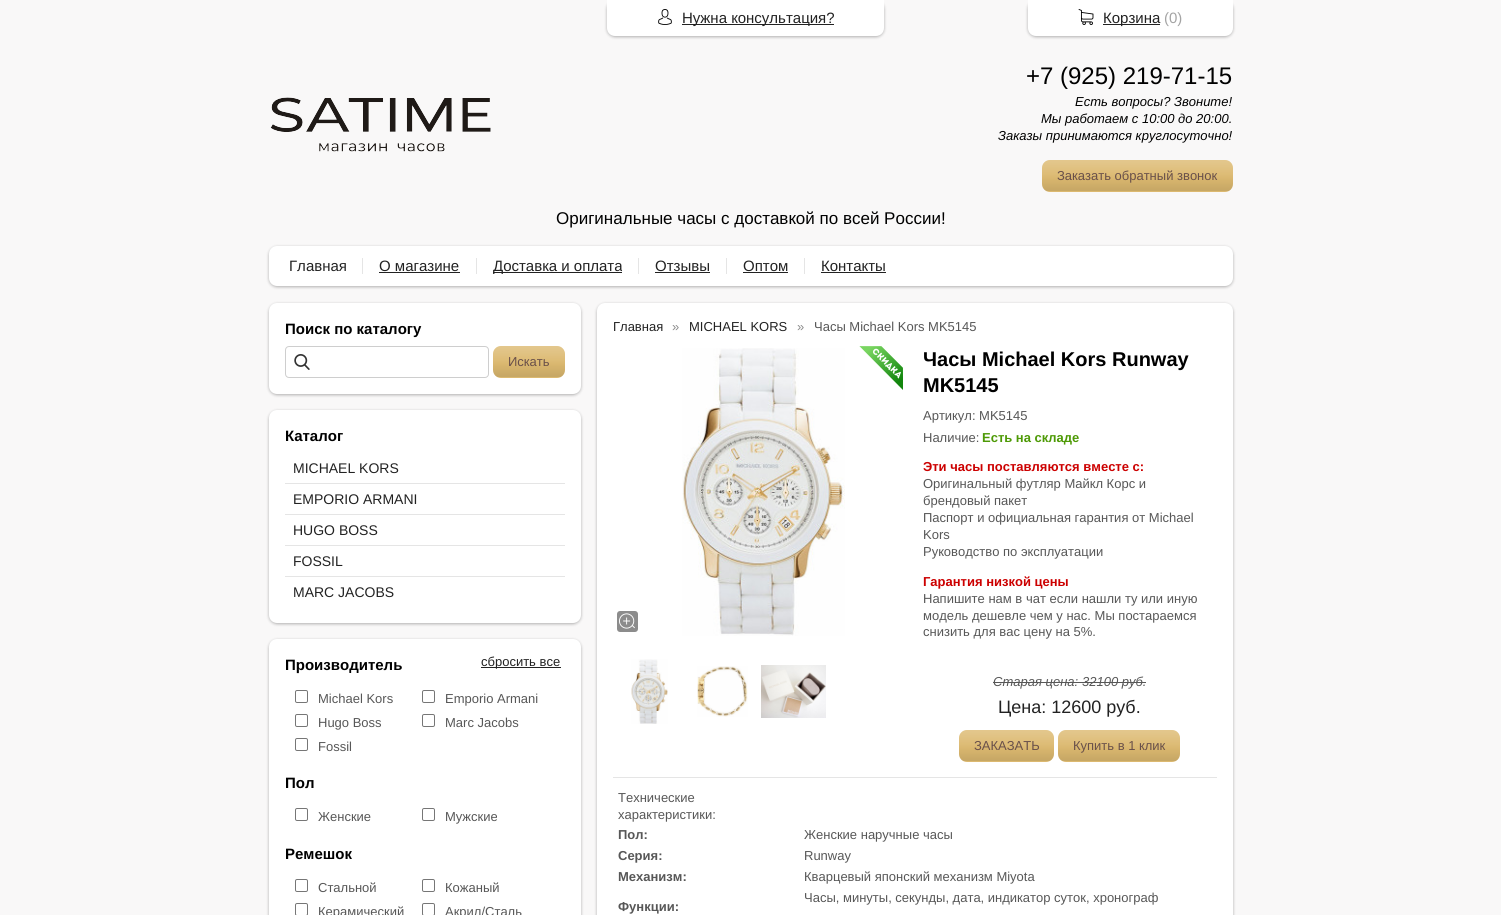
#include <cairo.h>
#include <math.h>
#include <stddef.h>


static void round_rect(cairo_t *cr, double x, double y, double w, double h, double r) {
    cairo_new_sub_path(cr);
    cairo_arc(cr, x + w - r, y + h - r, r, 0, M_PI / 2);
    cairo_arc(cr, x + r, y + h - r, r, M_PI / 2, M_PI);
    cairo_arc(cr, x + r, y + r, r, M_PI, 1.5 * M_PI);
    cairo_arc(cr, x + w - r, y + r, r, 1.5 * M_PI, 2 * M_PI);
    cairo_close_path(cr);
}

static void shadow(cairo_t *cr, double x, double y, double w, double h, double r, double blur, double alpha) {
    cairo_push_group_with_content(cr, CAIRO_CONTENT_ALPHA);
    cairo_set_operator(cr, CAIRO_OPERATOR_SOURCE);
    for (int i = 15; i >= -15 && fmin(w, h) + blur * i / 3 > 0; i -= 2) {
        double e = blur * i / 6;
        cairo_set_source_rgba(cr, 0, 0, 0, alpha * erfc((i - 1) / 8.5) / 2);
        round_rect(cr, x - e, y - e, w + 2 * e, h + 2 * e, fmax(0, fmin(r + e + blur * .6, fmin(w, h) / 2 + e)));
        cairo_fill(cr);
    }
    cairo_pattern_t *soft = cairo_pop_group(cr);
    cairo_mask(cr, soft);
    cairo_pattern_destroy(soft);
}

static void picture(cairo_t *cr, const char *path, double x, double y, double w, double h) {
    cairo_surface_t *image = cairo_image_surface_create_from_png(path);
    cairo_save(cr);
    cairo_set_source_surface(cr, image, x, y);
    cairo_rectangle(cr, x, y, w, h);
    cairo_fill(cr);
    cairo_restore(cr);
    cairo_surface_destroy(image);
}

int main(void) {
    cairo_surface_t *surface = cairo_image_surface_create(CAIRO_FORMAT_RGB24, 1501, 915);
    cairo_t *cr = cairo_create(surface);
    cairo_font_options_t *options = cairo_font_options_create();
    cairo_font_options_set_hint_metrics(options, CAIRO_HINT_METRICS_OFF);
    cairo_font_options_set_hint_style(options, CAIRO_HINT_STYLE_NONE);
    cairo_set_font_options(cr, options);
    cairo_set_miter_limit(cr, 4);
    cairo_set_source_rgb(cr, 0.973, 0.969, 0.969);
    cairo_paint(cr);
    cairo_set_source_rgb(cr, 0, 0, 0);
    shadow(cr, 607, 1, 277, 36, 8, 1.5, 0.3);
    cairo_set_source_rgb(cr, 1, 1, 1);
    cairo_new_path(cr);
    cairo_move_to(cr, 607, 0);
    cairo_line_to(cr, 884, 0);
    cairo_line_to(cr, 884, 28);
    cairo_curve_to(cr, 884, 32.5, 880.5, 36, 876, 36);
    cairo_line_to(cr, 615, 36);
    cairo_curve_to(cr, 610.5, 36, 607, 32.5, 607, 28);
    cairo_close_path(cr);
    cairo_fill(cr);
    picture(cr, "img1.png", 658, 9, 14, 16);
    cairo_set_source_rgb(cr, 0.133, 0.133, 0.133);
    cairo_rectangle(cr, 682, 24, 152, 1);
    cairo_fill(cr);
    cairo_select_font_face(cr, "Liberation Sans", CAIRO_FONT_SLANT_NORMAL, CAIRO_FONT_WEIGHT_NORMAL);
    cairo_set_font_size(cr, 15);
    cairo_move_to(cr, 682, 23);
    cairo_show_text(cr, "Нужна консультация?");
    cairo_set_source_rgb(cr, 0, 0, 0);
    shadow(cr, 1028, 1, 205, 36, 8, 1.5, 0.3);
    cairo_set_source_rgb(cr, 1, 1, 1);
    cairo_new_path(cr);
    cairo_move_to(cr, 1028, 0);
    cairo_line_to(cr, 1233, 0);
    cairo_line_to(cr, 1233, 28);
    cairo_curve_to(cr, 1233, 32.5, 1229.5, 36, 1225, 36);
    cairo_line_to(cr, 1036, 36);
    cairo_curve_to(cr, 1031.5, 36, 1028, 32.5, 1028, 28);
    cairo_close_path(cr);
    cairo_fill(cr);
    picture(cr, "img2.png", 1078, 9, 16, 16);
    cairo_set_source_rgb(cr, 0.133, 0.133, 0.133);
    cairo_rectangle(cr, 1103, 24, 57, 1);
    cairo_fill(cr);
    cairo_move_to(cr, 1103, 23);
    cairo_show_text(cr, "Корзина");
    cairo_set_source_rgb(cr, 0.643, 0.643, 0.643);
    cairo_move_to(cr, 1164, 23);
    cairo_show_text(cr, "(0)");
    picture(cr, "img3.png", 270, 97, 221, 55);
    cairo_set_font_size(cr, 24);
    cairo_set_source_rgb(cr, 0, 0, 0);
    cairo_move_to(cr, 1026, 84);
    cairo_show_text(cr, "+7 (925) 219-71-15");
    cairo_select_font_face(cr, "Liberation Sans", CAIRO_FONT_SLANT_ITALIC, CAIRO_FONT_WEIGHT_NORMAL);
    cairo_set_font_size(cr, 13);
    cairo_move_to(cr, 1075, 106);
    cairo_show_text(cr, "Есть вопросы? Звоните!");
    cairo_move_to(cr, 1041, 123);
    cairo_show_text(cr, "Мы работаем с 10:00 до 20:00.");
    cairo_move_to(cr, 998, 140);
    cairo_show_text(cr, "Заказы принимаются круглосуточно!");
    cairo_set_source_rgb(cr, 0.863, 0.725, 0.439);
    round_rect(cr, 1042, 160, 191, 32, 8);
    cairo_fill(cr);
    picture(cr, "img4.png", 1042, 160, 191, 31);
    cairo_select_font_face(cr, "Liberation Sans", CAIRO_FONT_SLANT_NORMAL, CAIRO_FONT_WEIGHT_NORMAL);
    cairo_set_source_rgb(cr, 0.412, 0.314, 0.29);
    cairo_move_to(cr, 1057, 180);
    cairo_show_text(cr, "Заказать обратный звонок");
    cairo_set_font_size(cr, 17);
    cairo_set_source_rgb(cr, 0, 0, 0);
    cairo_move_to(cr, 556, 224);
    cairo_show_text(cr, "Оригинальные часы с доставкой по всей России!");
    cairo_set_source_rgb(cr, 0, 0, 0);
    shadow(cr, 269, 247, 964, 40, 8, 1.5, 0.3);
    cairo_set_source_rgb(cr, 1, 1, 1);
    round_rect(cr, 269, 246, 964, 40, 8);
    cairo_fill(cr);
    cairo_set_font_size(cr, 15);
    cairo_set_source_rgb(cr, 0.133, 0.133, 0.133);
    cairo_move_to(cr, 289, 271);
    cairo_show_text(cr, "Главная");
    cairo_set_source_rgb(cr, 0.898, 0.898, 0.898);
    cairo_rectangle(cr, 362, 258, 1, 16);
    cairo_fill(cr);
    cairo_set_source_rgb(cr, 0.133, 0.133, 0.133);
    cairo_move_to(cr, 379, 271);
    cairo_show_text(cr, "О магазине");
    cairo_rectangle(cr, 379, 272, 81, 1);
    cairo_fill(cr);
    cairo_set_source_rgb(cr, 0.898, 0.898, 0.898);
    cairo_rectangle(cr, 476, 258, 1, 16);
    cairo_fill(cr);
    cairo_set_source_rgb(cr, 0.133, 0.133, 0.133);
    cairo_rectangle(cr, 493, 272, 129, 1);
    cairo_fill(cr);
    cairo_save(cr);
    cairo_rectangle(cr, 493, 258, 129, 16);
    cairo_clip(cr);
    cairo_move_to(cr, 493, 271);
    cairo_show_text(cr, "Доставка и оплата");
    cairo_restore(cr);
    cairo_set_source_rgb(cr, 0.898, 0.898, 0.898);
    cairo_rectangle(cr, 638, 258, 1, 16);
    cairo_fill(cr);
    cairo_set_source_rgb(cr, 0.133, 0.133, 0.133);
    cairo_move_to(cr, 655, 271);
    cairo_show_text(cr, "Отзывы");
    cairo_rectangle(cr, 655, 272, 55, 1);
    cairo_fill(cr);
    cairo_set_source_rgb(cr, 0.898, 0.898, 0.898);
    cairo_rectangle(cr, 726, 258, 1, 16);
    cairo_fill(cr);
    cairo_set_source_rgb(cr, 0.133, 0.133, 0.133);
    cairo_move_to(cr, 743, 271);
    cairo_show_text(cr, "Оптом");
    cairo_rectangle(cr, 743, 272, 45, 1);
    cairo_fill(cr);
    cairo_set_source_rgb(cr, 0.898, 0.898, 0.898);
    cairo_rectangle(cr, 804, 258, 1, 16);
    cairo_fill(cr);
    cairo_set_source_rgb(cr, 0.133, 0.133, 0.133);
    cairo_move_to(cr, 821, 271);
    cairo_show_text(cr, "Контакты");
    cairo_rectangle(cr, 821, 272, 65, 1);
    cairo_fill(cr);
    cairo_set_source_rgb(cr, 0, 0, 0);
    shadow(cr, 269, 304, 312, 91, 8, 1.5, 0.3);
    cairo_set_source_rgb(cr, 1, 1, 1);
    round_rect(cr, 269, 303, 312, 91, 8);
    cairo_fill(cr);
    cairo_select_font_face(cr, "Liberation Sans", CAIRO_FONT_SLANT_NORMAL, CAIRO_FONT_WEIGHT_BOLD);
    cairo_set_source_rgb(cr, 0, 0, 0);
    cairo_move_to(cr, 285, 334);
    cairo_show_text(cr, "Поиск по каталогу");
    picture(cr, "img5.png", 294, 354, 16, 16);
    round_rect(cr, 285.5, 346.5, 203, 31, 3.5);
    cairo_set_source_rgb(cr, 0.808, 0.808, 0.808);
    cairo_set_line_width(cr, 1);
    cairo_stroke(cr);
    cairo_set_source_rgb(cr, 0.863, 0.725, 0.439);
    round_rect(cr, 493, 346, 72, 32, 8);
    cairo_fill(cr);
    picture(cr, "img6.png", 493, 346, 72, 31);
    cairo_select_font_face(cr, "Liberation Sans", CAIRO_FONT_SLANT_NORMAL, CAIRO_FONT_WEIGHT_NORMAL);
    cairo_set_font_size(cr, 13);
    cairo_set_source_rgb(cr, 0.412, 0.314, 0.29);
    cairo_move_to(cr, 508, 366);
    cairo_show_text(cr, "Искать");
    cairo_set_source_rgb(cr, 0, 0, 0);
    shadow(cr, 269, 411, 312, 213, 8, 1.5, 0.3);
    cairo_set_source_rgb(cr, 1, 1, 1);
    round_rect(cr, 269, 410, 312, 213, 8);
    cairo_fill(cr);
    cairo_select_font_face(cr, "Liberation Sans", CAIRO_FONT_SLANT_NORMAL, CAIRO_FONT_WEIGHT_BOLD);
    cairo_set_font_size(cr, 15);
    cairo_set_source_rgb(cr, 0, 0, 0);
    cairo_move_to(cr, 285, 441);
    cairo_show_text(cr, "Каталог");
    cairo_select_font_face(cr, "Liberation Sans", CAIRO_FONT_SLANT_NORMAL, CAIRO_FONT_WEIGHT_NORMAL);
    cairo_set_font_size(cr, 14);
    cairo_set_source_rgb(cr, 0.133, 0.133, 0.133);
    cairo_move_to(cr, 293, 473);
    cairo_show_text(cr, "MICHAEL KORS");
    cairo_set_source_rgb(cr, 0.898, 0.898, 0.898);
    cairo_rectangle(cr, 285, 483, 280, 1);
    cairo_fill(cr);
    cairo_set_source_rgb(cr, 0.133, 0.133, 0.133);
    cairo_move_to(cr, 293, 504);
    cairo_show_text(cr, "EMPORIO ARMANI");
    cairo_set_source_rgb(cr, 0.898, 0.898, 0.898);
    cairo_rectangle(cr, 285, 514, 280, 1);
    cairo_fill(cr);
    cairo_set_source_rgb(cr, 0.133, 0.133, 0.133);
    cairo_move_to(cr, 293, 535);
    cairo_show_text(cr, "HUGO BOSS");
    cairo_set_source_rgb(cr, 0.898, 0.898, 0.898);
    cairo_rectangle(cr, 285, 545, 280, 1);
    cairo_fill(cr);
    cairo_set_source_rgb(cr, 0.133, 0.133, 0.133);
    cairo_move_to(cr, 293, 566);
    cairo_show_text(cr, "FOSSIL");
    cairo_set_source_rgb(cr, 0.898, 0.898, 0.898);
    cairo_rectangle(cr, 285, 576, 280, 1);
    cairo_fill(cr);
    cairo_set_source_rgb(cr, 0.133, 0.133, 0.133);
    cairo_move_to(cr, 293, 597);
    cairo_show_text(cr, "MARC JACOBS");
    cairo_set_source_rgb(cr, 0, 0, 0);
    shadow(cr, 269, 640, 312, 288, 8, 1.5, 0.3);
    cairo_set_source_rgb(cr, 1, 1, 1);
    round_rect(cr, 269, 639, 312, 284, 8);
    cairo_fill(cr);
    cairo_select_font_face(cr, "Liberation Sans", CAIRO_FONT_SLANT_NORMAL, CAIRO_FONT_WEIGHT_BOLD);
    cairo_set_font_size(cr, 15);
    cairo_set_source_rgb(cr, 0, 0, 0);
    cairo_move_to(cr, 285, 670);
    cairo_show_text(cr, "Производитель");
    cairo_set_source_rgb(cr, 0.133, 0.133, 0.133);
    cairo_rectangle(cr, 481, 667, 80, 1);
    cairo_fill(cr);
    cairo_select_font_face(cr, "Liberation Sans", CAIRO_FONT_SLANT_NORMAL, CAIRO_FONT_WEIGHT_NORMAL);
    cairo_set_font_size(cr, 13);
    cairo_move_to(cr, 481, 666);
    cairo_show_text(cr, "сбросить все");
    round_rect(cr, 295.5, 690.5, 12, 12, 1.5);
    cairo_set_source_rgb(cr, 0.463, 0.463, 0.463);
    cairo_stroke(cr);
    cairo_set_source_rgb(cr, 0.341, 0.341, 0.341);
    cairo_move_to(cr, 318, 703);
    cairo_show_text(cr, "Michael Kors");
    round_rect(cr, 422.5, 690.5, 12, 12, 1.5);
    cairo_set_source_rgb(cr, 0.463, 0.463, 0.463);
    cairo_stroke(cr);
    cairo_set_source_rgb(cr, 0.341, 0.341, 0.341);
    cairo_move_to(cr, 445, 703);
    cairo_show_text(cr, "Emporio Armani");
    round_rect(cr, 295.5, 714.5, 12, 12, 1.5);
    cairo_set_source_rgb(cr, 0.463, 0.463, 0.463);
    cairo_stroke(cr);
    cairo_set_source_rgb(cr, 0.341, 0.341, 0.341);
    cairo_move_to(cr, 318, 727);
    cairo_show_text(cr, "Hugo Boss");
    round_rect(cr, 422.5, 714.5, 12, 12, 1.5);
    cairo_set_source_rgb(cr, 0.463, 0.463, 0.463);
    cairo_stroke(cr);
    cairo_set_source_rgb(cr, 0.341, 0.341, 0.341);
    cairo_move_to(cr, 445, 727);
    cairo_show_text(cr, "Marc Jacobs");
    round_rect(cr, 295.5, 738.5, 12, 12, 1.5);
    cairo_set_source_rgb(cr, 0.463, 0.463, 0.463);
    cairo_stroke(cr);
    cairo_set_source_rgb(cr, 0.341, 0.341, 0.341);
    cairo_move_to(cr, 318, 751);
    cairo_show_text(cr, "Fossil");
    cairo_select_font_face(cr, "Liberation Sans", CAIRO_FONT_SLANT_NORMAL, CAIRO_FONT_WEIGHT_BOLD);
    cairo_set_font_size(cr, 15);
    cairo_set_source_rgb(cr, 0, 0, 0);
    cairo_move_to(cr, 285, 788);
    cairo_show_text(cr, "Пол");
    round_rect(cr, 295.5, 808.5, 12, 12, 1.5);
    cairo_set_source_rgb(cr, 0.463, 0.463, 0.463);
    cairo_stroke(cr);
    cairo_select_font_face(cr, "Liberation Sans", CAIRO_FONT_SLANT_NORMAL, CAIRO_FONT_WEIGHT_NORMAL);
    cairo_set_font_size(cr, 13);
    cairo_set_source_rgb(cr, 0.341, 0.341, 0.341);
    cairo_move_to(cr, 318, 821);
    cairo_show_text(cr, "Женские");
    round_rect(cr, 422.5, 808.5, 12, 12, 1.5);
    cairo_set_source_rgb(cr, 0.463, 0.463, 0.463);
    cairo_stroke(cr);
    cairo_set_source_rgb(cr, 0.341, 0.341, 0.341);
    cairo_move_to(cr, 445, 821);
    cairo_show_text(cr, "Мужские");
    cairo_select_font_face(cr, "Liberation Sans", CAIRO_FONT_SLANT_NORMAL, CAIRO_FONT_WEIGHT_BOLD);
    cairo_set_font_size(cr, 15);
    cairo_set_source_rgb(cr, 0, 0, 0);
    cairo_move_to(cr, 285, 859);
    cairo_show_text(cr, "Ремешок");
    round_rect(cr, 295.5, 879.5, 12, 12, 1.5);
    cairo_set_source_rgb(cr, 0.463, 0.463, 0.463);
    cairo_stroke(cr);
    cairo_select_font_face(cr, "Liberation Sans", CAIRO_FONT_SLANT_NORMAL, CAIRO_FONT_WEIGHT_NORMAL);
    cairo_set_font_size(cr, 13);
    cairo_set_source_rgb(cr, 0.341, 0.341, 0.341);
    cairo_move_to(cr, 318, 892);
    cairo_show_text(cr, "Стальной");
    round_rect(cr, 422.5, 879.5, 12, 12, 1.5);
    cairo_set_source_rgb(cr, 0.463, 0.463, 0.463);
    cairo_stroke(cr);
    cairo_set_source_rgb(cr, 0.341, 0.341, 0.341);
    cairo_move_to(cr, 445, 892);
    cairo_show_text(cr, "Кожаный");
    round_rect(cr, 295.5, 903.5, 12, 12, 1.5);
    cairo_set_source_rgb(cr, 0.463, 0.463, 0.463);
    cairo_stroke(cr);
    cairo_set_source_rgb(cr, 0.341, 0.341, 0.341);
    cairo_move_to(cr, 318, 916);
    cairo_show_text(cr, "Керамический");
    round_rect(cr, 422.5, 903.5, 12, 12, 1.5);
    cairo_set_source_rgb(cr, 0.463, 0.463, 0.463);
    cairo_stroke(cr);
    cairo_set_source_rgb(cr, 0.341, 0.341, 0.341);
    cairo_move_to(cr, 445, 916);
    cairo_show_text(cr, "Акрил/Сталь");
    cairo_set_source_rgb(cr, 0, 0, 0);
    shadow(cr, 597, 304, 636, 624, 8, 1.5, 0.3);
    cairo_set_source_rgb(cr, 1, 1, 1);
    round_rect(cr, 597, 303, 636, 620, 8);
    cairo_fill(cr);
    cairo_set_source_rgb(cr, 0.133, 0.133, 0.133);
    cairo_move_to(cr, 613, 331);
    cairo_show_text(cr, "Главная");
    cairo_set_source_rgb(cr, 0.549, 0.549, 0.549);
    cairo_move_to(cr, 672, 331);
    cairo_show_text(cr, "»");
    cairo_set_source_rgb(cr, 0.133, 0.133, 0.133);
    cairo_move_to(cr, 689, 331);
    cairo_show_text(cr, "MICHAEL KORS");
    cairo_set_source_rgb(cr, 0.549, 0.549, 0.549);
    cairo_move_to(cr, 797, 331);
    cairo_show_text(cr, "»");
    cairo_set_source_rgb(cr, 0.341, 0.341, 0.341);
    cairo_move_to(cr, 814, 331);
    cairo_show_text(cr, "Часы Michael Kors MK5145");
    cairo_set_source_rgb(cr, 0.549, 0.549, 0.549);
    round_rect(cr, 617, 611, 21, 21, 3);
    cairo_fill(cr);
    picture(cr, "img7.png", 619, 613, 16, 16);
    picture(cr, "img8.png", 682, 348, 163, 288);
    picture(cr, "img9.png", 859, 346, 44, 44);
    picture(cr, "img10.png", 631, 659, 37, 65);
    picture(cr, "img11.png", 697, 666, 51, 51);
    picture(cr, "img12.png", 761, 665, 65, 53);
    cairo_select_font_face(cr, "Liberation Sans", CAIRO_FONT_SLANT_NORMAL, CAIRO_FONT_WEIGHT_BOLD);
    cairo_set_font_size(cr, 20);
    cairo_set_source_rgb(cr, 0, 0, 0);
    cairo_move_to(cr, 923, 366);
    cairo_show_text(cr, "Часы Michael Kors Runway");
    cairo_move_to(cr, 923, 392);
    cairo_show_text(cr, "MK5145");
    cairo_select_font_face(cr, "Liberation Sans", CAIRO_FONT_SLANT_NORMAL, CAIRO_FONT_WEIGHT_NORMAL);
    cairo_set_font_size(cr, 13);
    cairo_set_source_rgb(cr, 0.341, 0.341, 0.341);
    cairo_move_to(cr, 923, 420);
    cairo_show_text(cr, "Артикул: MK5145");
    cairo_move_to(cr, 923, 442);
    cairo_show_text(cr, "Наличие:");
    cairo_select_font_face(cr, "Liberation Sans", CAIRO_FONT_SLANT_NORMAL, CAIRO_FONT_WEIGHT_BOLD);
    cairo_set_source_rgb(cr, 0.306, 0.604, 0.024);
    cairo_move_to(cr, 982, 442);
    cairo_show_text(cr, "Есть на складе");
    cairo_set_source_rgb(cr, 0.8, 0, 0);
    cairo_move_to(cr, 923, 471);
    cairo_show_text(cr, "Эти часы поставляются вместе с:");
    cairo_select_font_face(cr, "Liberation Sans", CAIRO_FONT_SLANT_NORMAL, CAIRO_FONT_WEIGHT_NORMAL);
    cairo_set_source_rgb(cr, 0.341, 0.341, 0.341);
    cairo_move_to(cr, 923, 488);
    cairo_show_text(cr, "Оригинальный футляр Майкл Корс и");
    cairo_move_to(cr, 923, 505);
    cairo_show_text(cr, "брендовый пакет");
    cairo_move_to(cr, 923, 522);
    cairo_show_text(cr, "Паспорт и официальная гарантия от Michael");
    cairo_move_to(cr, 923, 539);
    cairo_show_text(cr, "Kors");
    cairo_move_to(cr, 923, 556);
    cairo_show_text(cr, "Руководство по эксплуатации");
    cairo_select_font_face(cr, "Liberation Sans", CAIRO_FONT_SLANT_NORMAL, CAIRO_FONT_WEIGHT_BOLD);
    cairo_set_source_rgb(cr, 0.8, 0, 0);
    cairo_move_to(cr, 923, 586);
    cairo_show_text(cr, "Гарантия низкой цены");
    cairo_select_font_face(cr, "Liberation Sans", CAIRO_FONT_SLANT_NORMAL, CAIRO_FONT_WEIGHT_NORMAL);
    cairo_set_source_rgb(cr, 0.341, 0.341, 0.341);
    cairo_move_to(cr, 923, 603);
    cairo_show_text(cr, "Напишите нам в чат если нашли ту или иную");
    cairo_move_to(cr, 923, 620);
    cairo_show_text(cr, "модель дешевле чем у нас. Мы постараемся");
    cairo_move_to(cr, 923, 636);
    cairo_show_text(cr, "снизить для вас цену на 5%.");
    cairo_select_font_face(cr, "Liberation Sans", CAIRO_FONT_SLANT_ITALIC, CAIRO_FONT_WEIGHT_NORMAL);
    cairo_move_to(cr, 993, 686);
    cairo_show_text(cr, "Старая цена:");
    cairo_rectangle(cr, 993, 682, 89, 1);
    cairo_fill(cr);
    cairo_move_to(cr, 1082, 686);
    cairo_show_text(cr, "32100 руб.");
    cairo_rectangle(cr, 1082, 682, 64, 1);
    cairo_fill(cr);
    cairo_select_font_face(cr, "Liberation Sans", CAIRO_FONT_SLANT_NORMAL, CAIRO_FONT_WEIGHT_NORMAL);
    cairo_set_font_size(cr, 18);
    cairo_set_source_rgb(cr, 0.133, 0.133, 0.133);
    cairo_move_to(cr, 998, 713);
    cairo_show_text(cr, "Цена: 12600 руб.");
    cairo_set_source_rgb(cr, 0.863, 0.725, 0.439);
    round_rect(cr, 959, 730, 95, 32, 8);
    cairo_fill(cr);
    picture(cr, "img13.png", 959, 730, 95, 31);
    cairo_set_font_size(cr, 13);
    cairo_set_source_rgb(cr, 0.412, 0.314, 0.29);
    cairo_move_to(cr, 974, 750);
    cairo_show_text(cr, "ЗАКАЗАТЬ");
    cairo_set_source_rgb(cr, 0.863, 0.725, 0.439);
    round_rect(cr, 1058, 730, 122, 32, 8);
    cairo_fill(cr);
    picture(cr, "img14.png", 1058, 730, 122, 31);
    cairo_set_source_rgb(cr, 0.412, 0.314, 0.29);
    cairo_move_to(cr, 1073, 750);
    cairo_show_text(cr, "Купить в 1 клик");
    cairo_set_source_rgb(cr, 0.898, 0.898, 0.898);
    cairo_rectangle(cr, 613, 777, 604, 1);
    cairo_fill(cr);
    cairo_set_source_rgb(cr, 0.341, 0.341, 0.341);
    cairo_move_to(cr, 618, 802);
    cairo_show_text(cr, "Технические");
    cairo_move_to(cr, 618, 819);
    cairo_show_text(cr, "характеристики:");
    cairo_select_font_face(cr, "Liberation Sans", CAIRO_FONT_SLANT_NORMAL, CAIRO_FONT_WEIGHT_BOLD);
    cairo_move_to(cr, 618, 839);
    cairo_show_text(cr, "Пол:");
    cairo_select_font_face(cr, "Liberation Sans", CAIRO_FONT_SLANT_NORMAL, CAIRO_FONT_WEIGHT_NORMAL);
    cairo_move_to(cr, 804, 839);
    cairo_show_text(cr, "Женские наручные часы");
    cairo_select_font_face(cr, "Liberation Sans", CAIRO_FONT_SLANT_NORMAL, CAIRO_FONT_WEIGHT_BOLD);
    cairo_move_to(cr, 618, 860);
    cairo_show_text(cr, "Серия:");
    cairo_select_font_face(cr, "Liberation Sans", CAIRO_FONT_SLANT_NORMAL, CAIRO_FONT_WEIGHT_NORMAL);
    cairo_move_to(cr, 804, 860);
    cairo_show_text(cr, "Runway");
    cairo_select_font_face(cr, "Liberation Sans", CAIRO_FONT_SLANT_NORMAL, CAIRO_FONT_WEIGHT_BOLD);
    cairo_move_to(cr, 618, 881);
    cairo_show_text(cr, "Механизм:");
    cairo_select_font_face(cr, "Liberation Sans", CAIRO_FONT_SLANT_NORMAL, CAIRO_FONT_WEIGHT_NORMAL);
    cairo_move_to(cr, 804, 881);
    cairo_show_text(cr, "Кварцевый японский механизм Miyota");
    cairo_move_to(cr, 804, 902);
    cairo_show_text(cr, "Часы, минуты, секунды, дата, индикатор суток, хронограф");
    cairo_select_font_face(cr, "Liberation Sans", CAIRO_FONT_SLANT_NORMAL, CAIRO_FONT_WEIGHT_BOLD);
    cairo_move_to(cr, 618, 911);
    cairo_show_text(cr, "Функции:");
    cairo_surface_write_to_png(surface, "page.png");
    cairo_font_options_destroy(options);
    cairo_destroy(cr);
    cairo_surface_destroy(surface);
    return 0;
}
